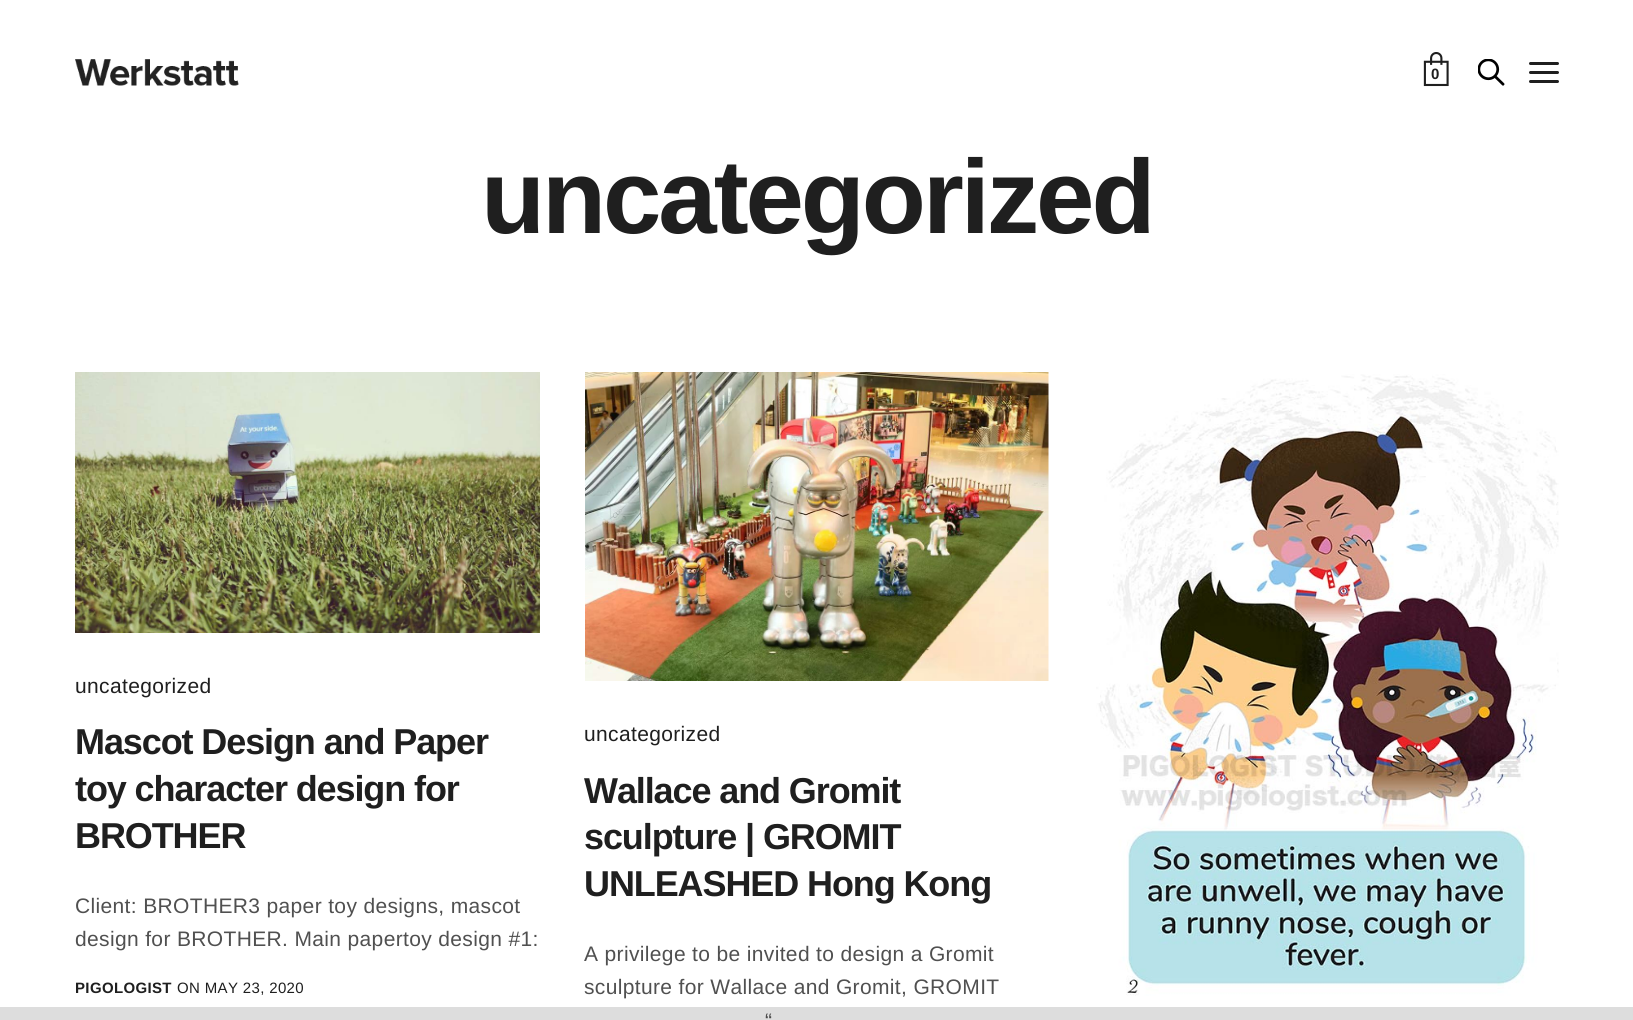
#include <cairo.h>
#include <math.h>
#include <stddef.h>


static void spaced_text(cairo_t *cr, double x, double y, const char *s, double letter, double word) {
    cairo_move_to(cr, x, y);
    while (*s) {
        char ch[5] = {0};
        int n = 0;
        do ch[n++] = *s++; while ((*s & 0xC0) == 0x80);
        cairo_show_text(cr, ch);
        cairo_rel_move_to(cr, letter + word * (*ch == ' '), 0);
    }
}

static void round_rect(cairo_t *cr, double x, double y, double w, double h, double r) {
    cairo_new_sub_path(cr);
    cairo_arc(cr, x + w - r, y + h - r, r, 0, M_PI / 2);
    cairo_arc(cr, x + r, y + h - r, r, M_PI / 2, M_PI);
    cairo_arc(cr, x + r, y + r, r, M_PI, 1.5 * M_PI);
    cairo_arc(cr, x + w - r, y + r, r, 1.5 * M_PI, 2 * M_PI);
    cairo_close_path(cr);
}

static void picture(cairo_t *cr, const char *path, double x, double y, double w, double h) {
    cairo_surface_t *image = cairo_image_surface_create_from_png(path);
    cairo_save(cr);
    cairo_set_source_surface(cr, image, x, y);
    cairo_rectangle(cr, x, y, w, h);
    cairo_fill(cr);
    cairo_restore(cr);
    cairo_surface_destroy(image);
}

int main(void) {
    cairo_surface_t *surface = cairo_image_surface_create(CAIRO_FORMAT_RGB24, 1633, 1020);
    cairo_t *cr = cairo_create(surface);
    cairo_font_options_t *options = cairo_font_options_create();
    cairo_font_options_set_hint_metrics(options, CAIRO_HINT_METRICS_OFF);
    cairo_font_options_set_hint_style(options, CAIRO_HINT_STYLE_NONE);
    cairo_set_font_options(cr, options);
    cairo_set_miter_limit(cr, 4);
    cairo_set_source_rgb(cr, 1, 1, 1);
    cairo_paint(cr);
    cairo_set_source_rgb(cr, 0.867, 0.867, 0.867);
    cairo_rectangle(cr, 0, 1007, 1633, 13);
    cairo_fill(cr);
    picture(cr, "img1.png", 75, 59, 164, 27);
    picture(cr, "img2.png", 1423, 52, 26, 35);
    cairo_select_font_face(cr, "Liberation Sans", CAIRO_FONT_SLANT_NORMAL, CAIRO_FONT_WEIGHT_BOLD);
    cairo_set_font_size(cr, 15);
    cairo_set_source_rgb(cr, 0.122, 0.122, 0.122);
    spaced_text(cr, 1431, 79, "0", 0.35, 0);
    picture(cr, "img3.png", 1478, 59, 27, 27);
    round_rect(cr, 1529, 62, 30, 3, 1.5);
    cairo_fill(cr);
    round_rect(cr, 1529, 71, 30, 3, 1.5);
    cairo_fill(cr);
    round_rect(cr, 1529, 80, 30, 3, 1.5);
    cairo_fill(cr);
    cairo_set_font_size(cr, 105);
    spaced_text(cr, 481, 233, "uncategorized", -3.1, 0);
    picture(cr, "img4.png", 75, 372, 465, 261);
    cairo_select_font_face(cr, "Liberation Sans", CAIRO_FONT_SLANT_NORMAL, CAIRO_FONT_WEIGHT_NORMAL);
    cairo_set_font_size(cr, 21);
    spaced_text(cr, 75, 693, "uncategorized", 0.35, 0);
    cairo_select_font_face(cr, "Liberation Sans", CAIRO_FONT_SLANT_NORMAL, CAIRO_FONT_WEIGHT_BOLD);
    cairo_set_font_size(cr, 36);
    spaced_text(cr, 75, 754, "Mascot Design and Paper", -1.1, 0);
    spaced_text(cr, 75, 801, "toy character design for", -1.1, 0);
    spaced_text(cr, 75, 848, "BROTHER", -1.1, 0);
    cairo_select_font_face(cr, "Liberation Sans", CAIRO_FONT_SLANT_NORMAL, CAIRO_FONT_WEIGHT_NORMAL);
    cairo_set_font_size(cr, 21);
    cairo_set_source_rgb(cr, 0.314, 0.314, 0.314);
    spaced_text(cr, 75, 913, "Client: BROTHER3 paper toy designs, mascot", 0.35, 0);
    spaced_text(cr, 75, 946, "design for BROTHER. Main papertoy design #1:", 0.35, 0);
    cairo_select_font_face(cr, "Liberation Sans", CAIRO_FONT_SLANT_NORMAL, CAIRO_FONT_WEIGHT_BOLD);
    cairo_set_font_size(cr, 15);
    cairo_set_source_rgb(cr, 0.122, 0.122, 0.122);
    spaced_text(cr, 75, 993, "PIGOLOGIST", 0.35, 0);
    cairo_select_font_face(cr, "Liberation Sans", CAIRO_FONT_SLANT_NORMAL, CAIRO_FONT_WEIGHT_NORMAL);
    spaced_text(cr, 177, 993, "ON MAY 23, 2020", 0.35, 0);
    picture(cr, "img5.png", 585, 372, 464, 309);
    cairo_set_font_size(cr, 21);
    spaced_text(cr, 584, 741, "uncategorized", 0.35, 0);
    cairo_select_font_face(cr, "Liberation Sans", CAIRO_FONT_SLANT_NORMAL, CAIRO_FONT_WEIGHT_BOLD);
    cairo_set_font_size(cr, 36);
    spaced_text(cr, 584, 803, "Wallace and Gromit", -1.1, 0);
    spaced_text(cr, 584, 849, "sculpture | GROMIT", -1.1, 0);
    spaced_text(cr, 584, 896, "UNLEASHED Hong Kong", -1.1, 0);
    cairo_select_font_face(cr, "Liberation Sans", CAIRO_FONT_SLANT_NORMAL, CAIRO_FONT_WEIGHT_NORMAL);
    cairo_set_font_size(cr, 21);
    cairo_set_source_rgb(cr, 0.314, 0.314, 0.314);
    spaced_text(cr, 584, 961, "A privilege to be invited to design a Gromit", 0.35, 0);
    spaced_text(cr, 584, 994, "sculpture for Wallace and Gromit, GROMIT", 0.35, 0);
    cairo_set_source_rgb(cr, 0.286, 0.286, 0.286);
    spaced_text(cr, 765, 1028, "“", 0.35, 0);
    picture(cr, "img6.png", 1096, 374, 463, 622);
    cairo_surface_write_to_png(surface, "page.png");
    cairo_font_options_destroy(options);
    cairo_destroy(cr);
    cairo_surface_destroy(surface);
    return 0;
}
